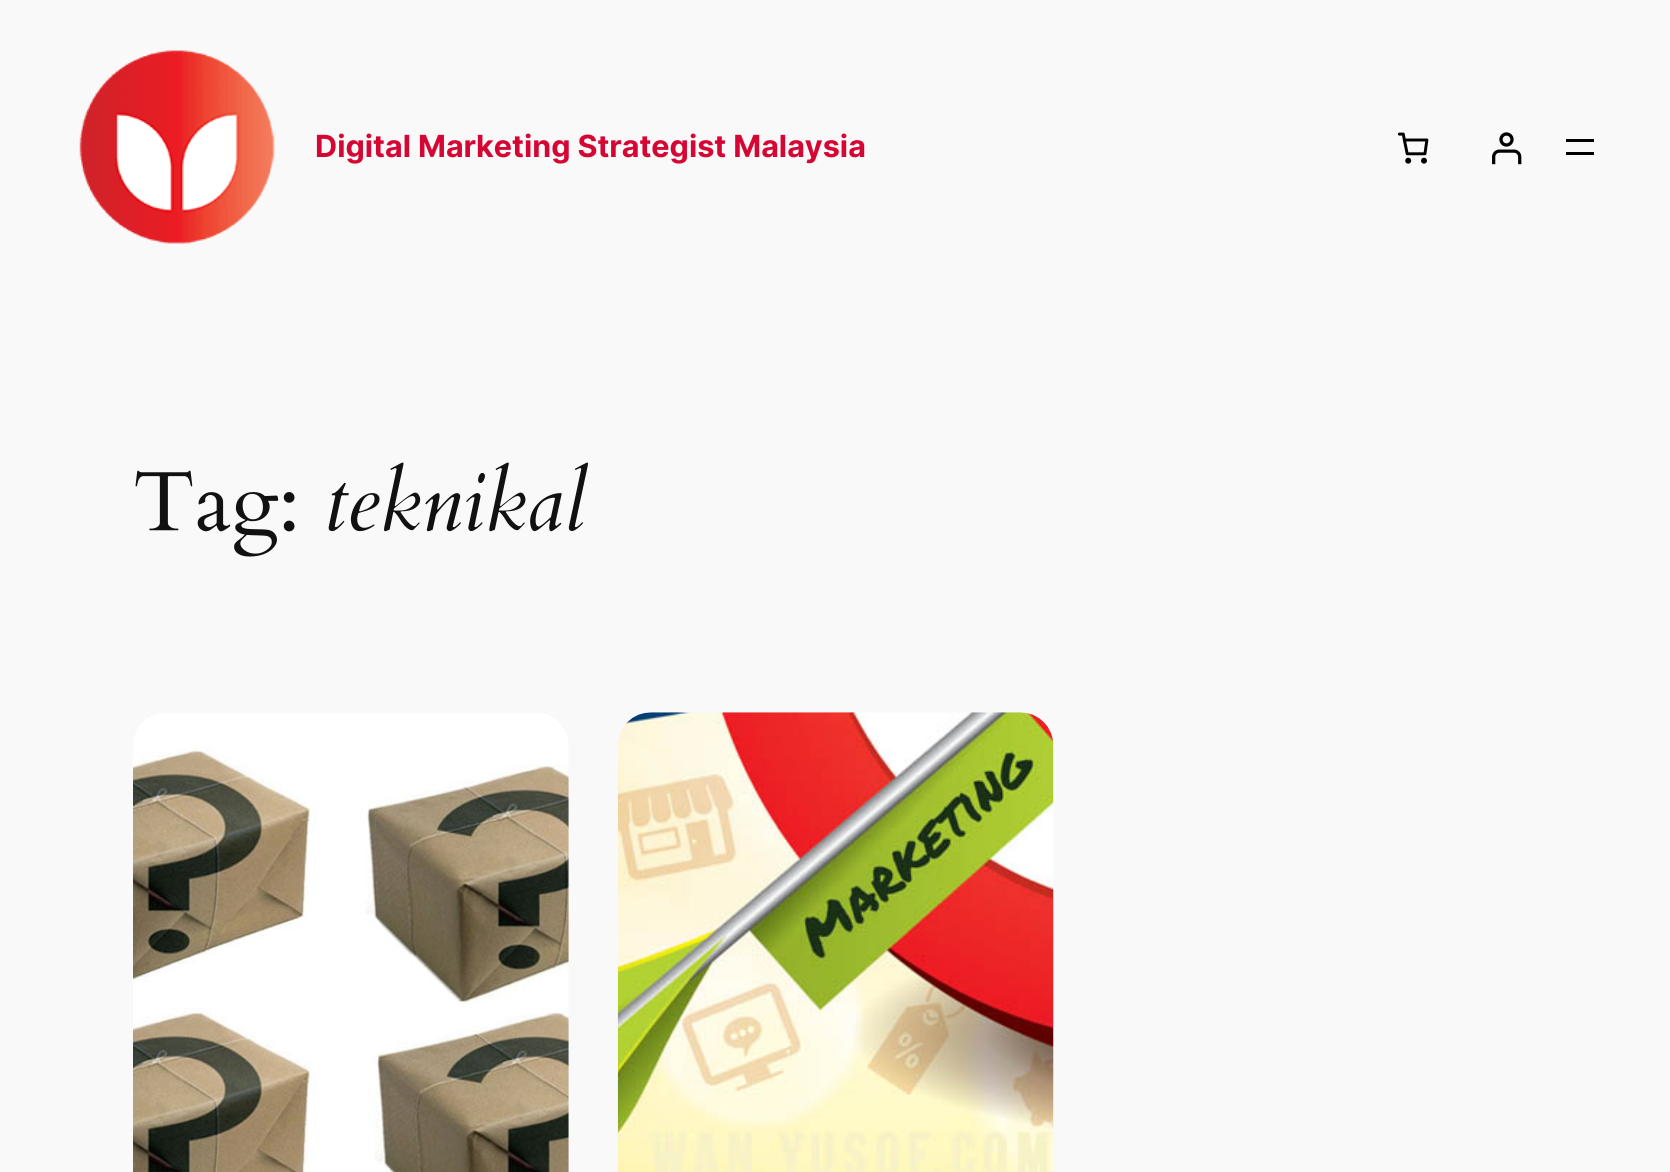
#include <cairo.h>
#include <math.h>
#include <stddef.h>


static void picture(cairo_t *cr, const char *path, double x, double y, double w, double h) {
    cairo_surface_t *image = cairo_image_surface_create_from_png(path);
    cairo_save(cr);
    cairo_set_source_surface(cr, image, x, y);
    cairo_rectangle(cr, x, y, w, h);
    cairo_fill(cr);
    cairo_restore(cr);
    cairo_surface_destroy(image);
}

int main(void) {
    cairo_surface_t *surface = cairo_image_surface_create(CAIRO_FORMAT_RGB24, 1670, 1172);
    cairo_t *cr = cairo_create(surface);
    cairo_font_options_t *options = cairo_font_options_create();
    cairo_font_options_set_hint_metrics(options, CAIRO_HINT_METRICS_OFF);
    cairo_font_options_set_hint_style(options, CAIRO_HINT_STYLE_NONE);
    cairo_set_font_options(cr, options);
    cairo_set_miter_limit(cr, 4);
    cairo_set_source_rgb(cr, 0.976, 0.976, 0.976);
    cairo_paint(cr);
    picture(cr, "img1.png", 79, 50, 196, 194);
    cairo_select_font_face(cr, "Inter", CAIRO_FONT_SLANT_NORMAL, CAIRO_FONT_WEIGHT_BOLD);
    cairo_set_font_size(cr, 30.5);
    cairo_set_source_rgb(cr, 0.839, 0.024, 0.204);
    cairo_move_to(cr, 315, 157);
    cairo_show_text(cr, "Digital Marketing Strategist Malaysia");
    picture(cr, "img2.png", 1397, 132, 32, 32);
    picture(cr, "img3.png", 1492, 132, 30, 33);
    cairo_set_source_rgb(cr, 0, 0, 0);
    cairo_rectangle(cr, 1566, 139, 28, 3);
    cairo_fill(cr);
    cairo_rectangle(cr, 1566, 152, 28, 3);
    cairo_fill(cr);
    picture(cr, "img4.png", 135, 470, 160, 87);
    cairo_select_font_face(cr, "Cardo", CAIRO_FONT_SLANT_ITALIC, CAIRO_FONT_WEIGHT_NORMAL);
    cairo_set_font_size(cr, 84);
    cairo_set_source_rgb(cr, 0.067, 0.067, 0.067);
    cairo_move_to(cr, 323, 530);
    cairo_show_text(cr, "teknikal");
    picture(cr, "img5.png", 133, 713, 436, 459);
    picture(cr, "img6.png", 617, 712, 437, 460);
    cairo_surface_write_to_png(surface, "page.png");
    cairo_font_options_destroy(options);
    cairo_destroy(cr);
    cairo_surface_destroy(surface);
    return 0;
}
